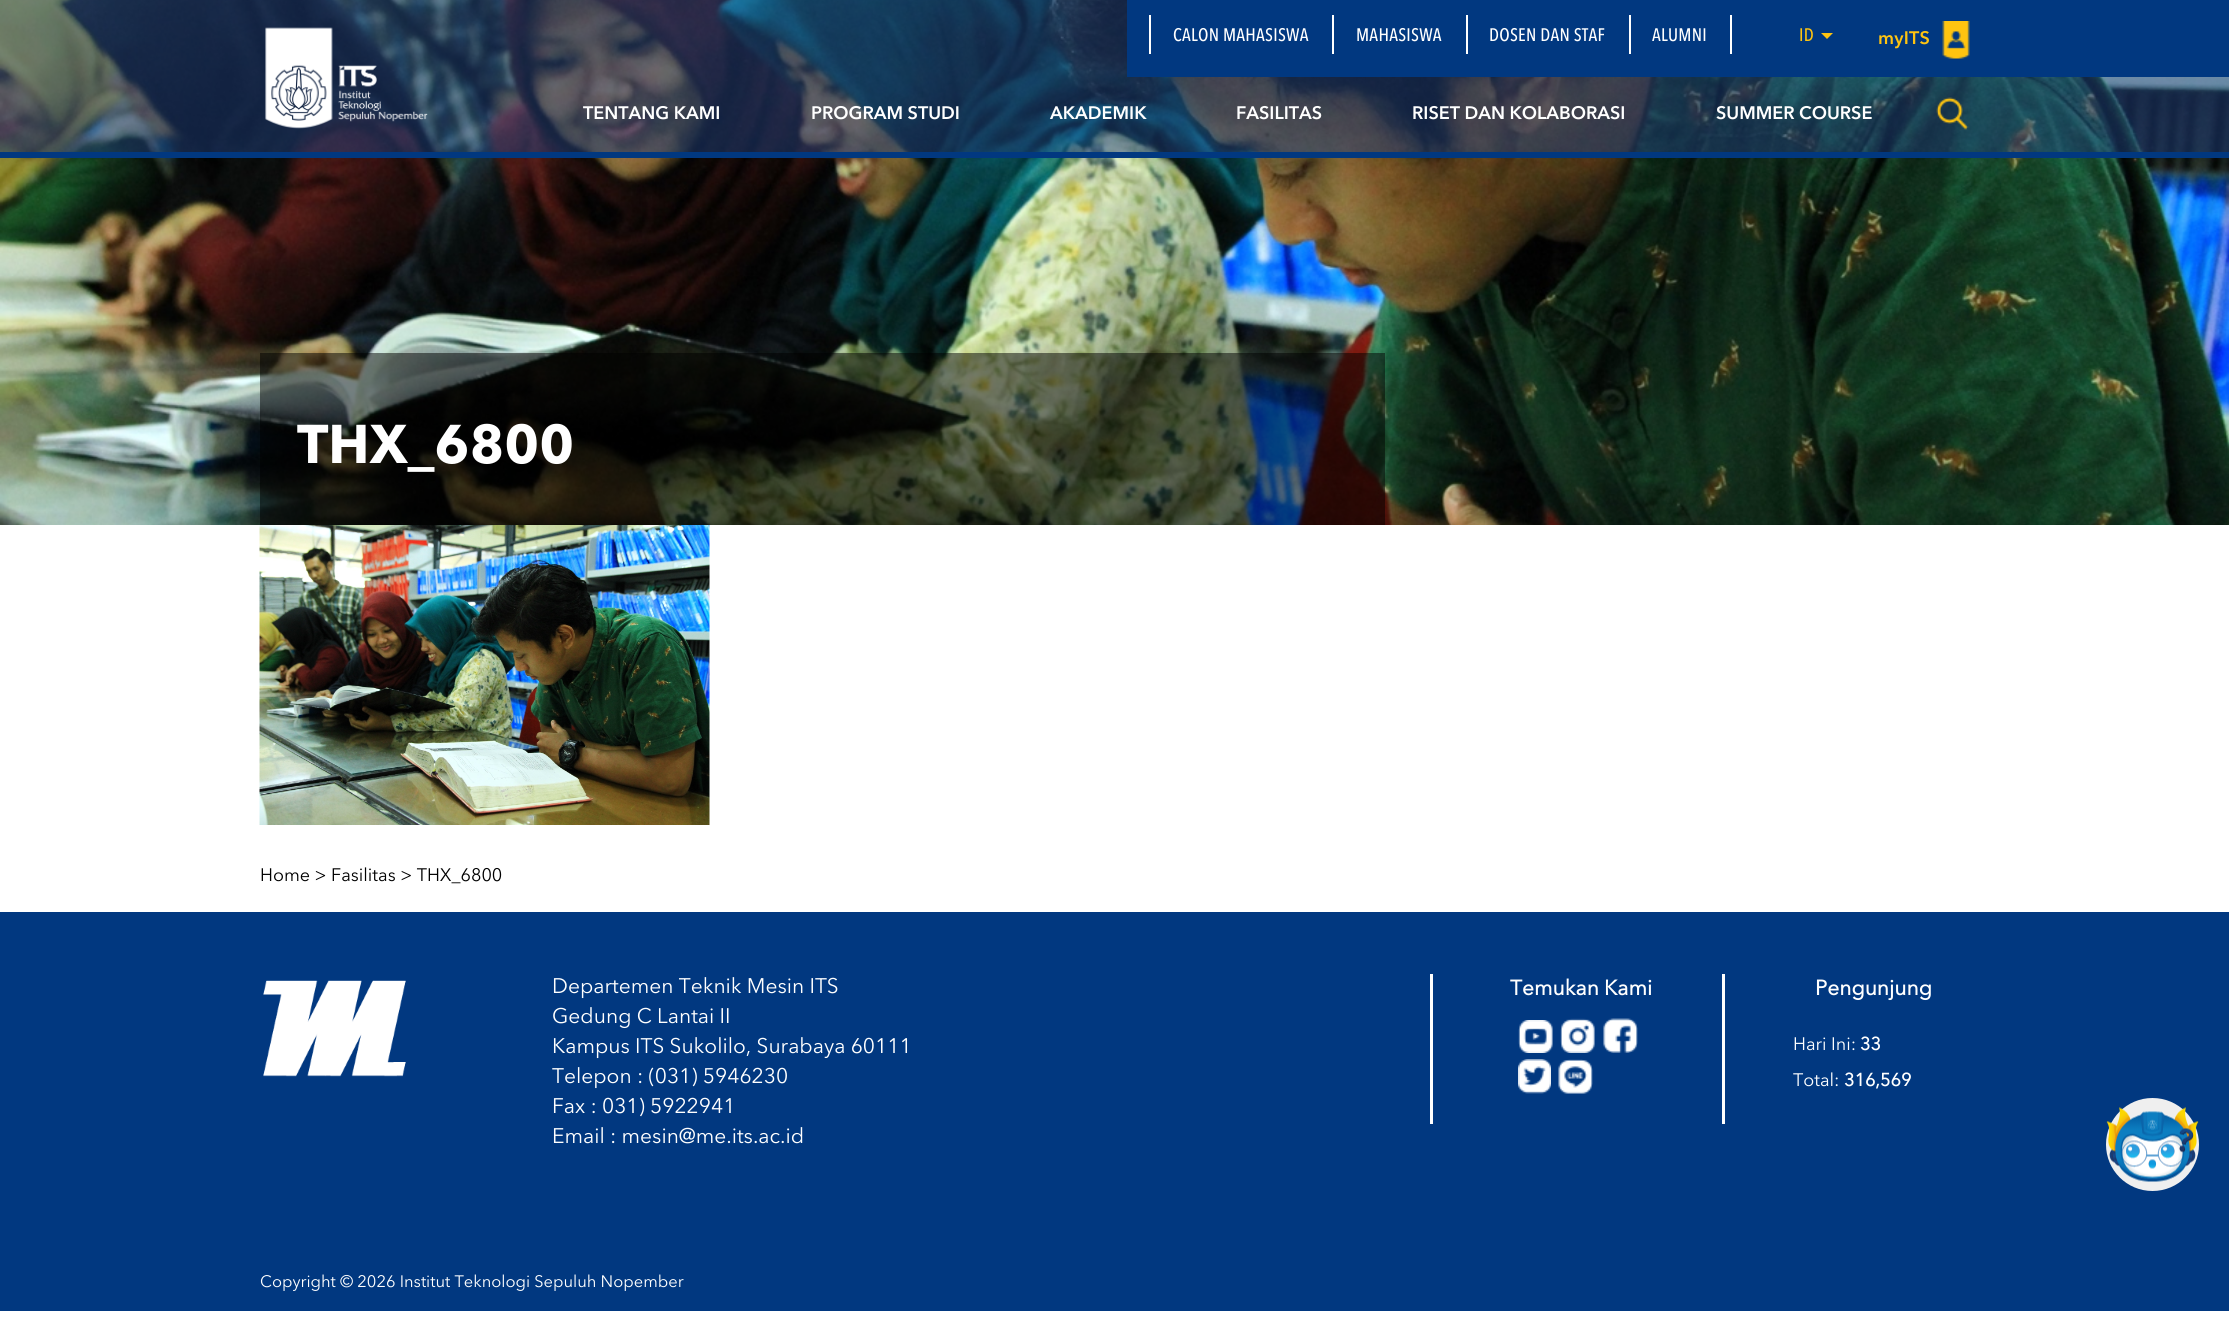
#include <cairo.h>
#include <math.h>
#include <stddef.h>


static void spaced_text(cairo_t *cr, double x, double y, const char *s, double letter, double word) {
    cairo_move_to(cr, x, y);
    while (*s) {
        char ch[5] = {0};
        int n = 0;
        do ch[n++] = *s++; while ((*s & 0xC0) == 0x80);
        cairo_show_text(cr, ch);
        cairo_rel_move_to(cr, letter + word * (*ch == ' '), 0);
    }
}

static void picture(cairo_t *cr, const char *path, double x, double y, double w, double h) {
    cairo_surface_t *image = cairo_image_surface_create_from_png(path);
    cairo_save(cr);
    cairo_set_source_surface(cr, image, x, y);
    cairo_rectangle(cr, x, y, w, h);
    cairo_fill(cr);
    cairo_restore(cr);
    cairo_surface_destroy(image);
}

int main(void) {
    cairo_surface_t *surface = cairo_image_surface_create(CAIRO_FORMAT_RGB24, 2229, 1326);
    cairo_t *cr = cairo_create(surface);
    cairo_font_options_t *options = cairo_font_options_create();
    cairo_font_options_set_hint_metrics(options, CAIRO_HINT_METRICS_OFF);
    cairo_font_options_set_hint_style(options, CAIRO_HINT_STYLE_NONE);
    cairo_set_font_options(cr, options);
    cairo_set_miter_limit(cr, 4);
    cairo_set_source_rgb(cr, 1, 1, 1);
    cairo_paint(cr);
    picture(cr, "img4.png", 0, 0, 2229, 525);
    cairo_set_source_rgba(cr, 0.125, 0.255, 0.498, 0.5);
    cairo_rectangle(cr, 0, 0, 2229, 152);
    cairo_fill(cr);
    cairo_set_source_rgb(cr, 0.004, 0.22, 0.502);
    cairo_rectangle(cr, 0, 152, 2229, 6);
    cairo_fill(cr);
    picture(cr, "img1.png", 265, 27, 163, 102);
    cairo_rectangle(cr, 1127, 0, 1102, 77);
    cairo_fill(cr);
    cairo_set_source_rgb(cr, 1, 1, 1);
    cairo_rectangle(cr, 1332, 15, 2, 39);
    cairo_fill(cr);
    cairo_rectangle(cr, 1149, 15, 2, 39);
    cairo_fill(cr);
    cairo_select_font_face(cr, "Avenir Next Medium", CAIRO_FONT_SLANT_NORMAL, CAIRO_FONT_WEIGHT_NORMAL);
    cairo_set_font_size(cr, 18);
    spaced_text(cr, 1173, 41, "CALON MAHASISWA", 0.25, 0);
    cairo_rectangle(cr, 1466, 15, 2, 39);
    cairo_fill(cr);
    spaced_text(cr, 1356, 41, "MAHASISWA", 0.25, 0);
    cairo_rectangle(cr, 1629, 15, 2, 39);
    cairo_fill(cr);
    spaced_text(cr, 1489, 41, "DOSEN DAN STAF", 0.25, 0);
    cairo_rectangle(cr, 1730, 15, 2, 39);
    cairo_fill(cr);
    spaced_text(cr, 1652, 41, "ALUMNI", 0.25, 0);
    cairo_set_source_rgb(cr, 1, 0.769, 0.063);
    spaced_text(cr, 1799, 41, "ID", 0.25, 0);
    cairo_new_path(cr);
    cairo_move_to(cr, 1821, 33);
    cairo_line_to(cr, 1833, 33);
    cairo_line_to(cr, 1827, 39);
    cairo_close_path(cr);
    cairo_fill(cr);
    cairo_select_font_face(cr, "Avenir Next SemiBold", CAIRO_FONT_SLANT_NORMAL, CAIRO_FONT_WEIGHT_NORMAL);
    spaced_text(cr, 1878, 44, "myITS", 0.25, 0);
    picture(cr, "img2.png", 1942, 21, 28, 38);
    cairo_set_source_rgb(cr, 1, 1, 1);
    cairo_move_to(cr, 583, 119);
    cairo_show_text(cr, "TENTANG KAMI");
    cairo_move_to(cr, 811, 119);
    cairo_show_text(cr, "PROGRAM STUDI");
    cairo_move_to(cr, 1050, 119);
    cairo_show_text(cr, "AKADEMIK");
    cairo_move_to(cr, 1236, 119);
    cairo_show_text(cr, "FASILITAS");
    cairo_move_to(cr, 1412, 119);
    cairo_show_text(cr, "RISET DAN KOLABORASI");
    cairo_move_to(cr, 1716, 119);
    cairo_show_text(cr, "SUMMER COURSE");
    picture(cr, "img3.png", 1936, 97, 33, 33);
    cairo_set_source_rgba(cr, 0, 0, 0, 0.5);
    cairo_rectangle(cr, 260, 353, 1125, 172);
    cairo_fill(cr);
    cairo_select_font_face(cr, "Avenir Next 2", CAIRO_FONT_SLANT_NORMAL, CAIRO_FONT_WEIGHT_BOLD);
    cairo_set_font_size(cr, 54);
    cairo_set_source_rgb(cr, 1, 1, 1);
    cairo_move_to(cr, 297, 463);
    cairo_show_text(cr, "THX_6800");
    picture(cr, "img5.png", 259, 525, 451, 300);
    cairo_select_font_face(cr, "Avenir Next", CAIRO_FONT_SLANT_NORMAL, CAIRO_FONT_WEIGHT_NORMAL);
    cairo_set_font_size(cr, 18);
    cairo_set_source_rgb(cr, 0, 0, 0);
    cairo_move_to(cr, 260, 881);
    cairo_show_text(cr, "Home > Fasilitas > THX_6800");
    cairo_set_source_rgb(cr, 0.004, 0.22, 0.502);
    cairo_rectangle(cr, 0, 912, 2229, 399);
    cairo_fill(cr);
    picture(cr, "img6.png", 263, 980, 143, 97);
    cairo_set_font_size(cr, 21);
    cairo_set_source_rgb(cr, 1, 1, 1);
    cairo_move_to(cr, 552, 993);
    cairo_show_text(cr, "Departemen Teknik Mesin ITS");
    cairo_move_to(cr, 552, 1023);
    cairo_show_text(cr, "Gedung C Lantai II");
    cairo_move_to(cr, 552, 1053);
    cairo_show_text(cr, "Kampus ITS Sukolilo, Surabaya 60111");
    cairo_move_to(cr, 552, 1083);
    cairo_show_text(cr, "Telepon : (031) 5946230");
    cairo_move_to(cr, 552, 1113);
    cairo_show_text(cr, "Fax : 031) 5922941");
    cairo_move_to(cr, 552, 1143);
    cairo_show_text(cr, "Email : mesin@me.its.ac.id");
    cairo_rectangle(cr, 1430, 974, 3, 150);
    cairo_fill(cr);
    cairo_select_font_face(cr, "Avenir Next", CAIRO_FONT_SLANT_NORMAL, CAIRO_FONT_WEIGHT_BOLD);
    cairo_move_to(cr, 1510, 995);
    cairo_show_text(cr, "Temukan Kami");
    picture(cr, "img7.png", 1518, 1020, 35, 33);
    picture(cr, "img8.png", 1560, 1018, 35, 35);
    picture(cr, "img9.png", 1603, 1018, 35, 35);
    picture(cr, "img10.png", 1518, 1059, 33, 35);
    picture(cr, "img11.png", 1558, 1059, 35, 35);
    cairo_rectangle(cr, 1722, 974, 3, 150);
    cairo_fill(cr);
    cairo_move_to(cr, 1815, 995);
    cairo_show_text(cr, "Pengunjung");
    cairo_select_font_face(cr, "Avenir Next", CAIRO_FONT_SLANT_NORMAL, CAIRO_FONT_WEIGHT_NORMAL);
    cairo_set_font_size(cr, 18);
    cairo_move_to(cr, 1793, 1050);
    cairo_show_text(cr, "Hari Ini:");
    cairo_select_font_face(cr, "Avenir Next", CAIRO_FONT_SLANT_NORMAL, CAIRO_FONT_WEIGHT_BOLD);
    cairo_move_to(cr, 1860, 1050);
    cairo_show_text(cr, "33");
    cairo_select_font_face(cr, "Avenir Next", CAIRO_FONT_SLANT_NORMAL, CAIRO_FONT_WEIGHT_NORMAL);
    cairo_move_to(cr, 1793, 1086);
    cairo_show_text(cr, "Total:");
    cairo_select_font_face(cr, "Avenir Next", CAIRO_FONT_SLANT_NORMAL, CAIRO_FONT_WEIGHT_BOLD);
    cairo_move_to(cr, 1844, 1086);
    cairo_show_text(cr, "316,569");
    cairo_select_font_face(cr, "Avenir Next", CAIRO_FONT_SLANT_NORMAL, CAIRO_FONT_WEIGHT_NORMAL);
    cairo_set_font_size(cr, 16.5);
    cairo_move_to(cr, 260, 1287);
    cairo_show_text(cr, "Copyright © 2026 Institut Teknologi Sepuluh Nopember");
    cairo_set_source_rgb(cr, 0.937, 0.937, 0.937);
    cairo_new_path(cr);
    cairo_arc(cr, 2152.5, 1144.5, 46.5, 0, 2 * M_PI);
    cairo_fill(cr);
    picture(cr, "img12.png", 2106, 1107, 93, 75);
    cairo_surface_write_to_png(surface, "page.png");
    cairo_font_options_destroy(options);
    cairo_destroy(cr);
    cairo_surface_destroy(surface);
    return 0;
}
